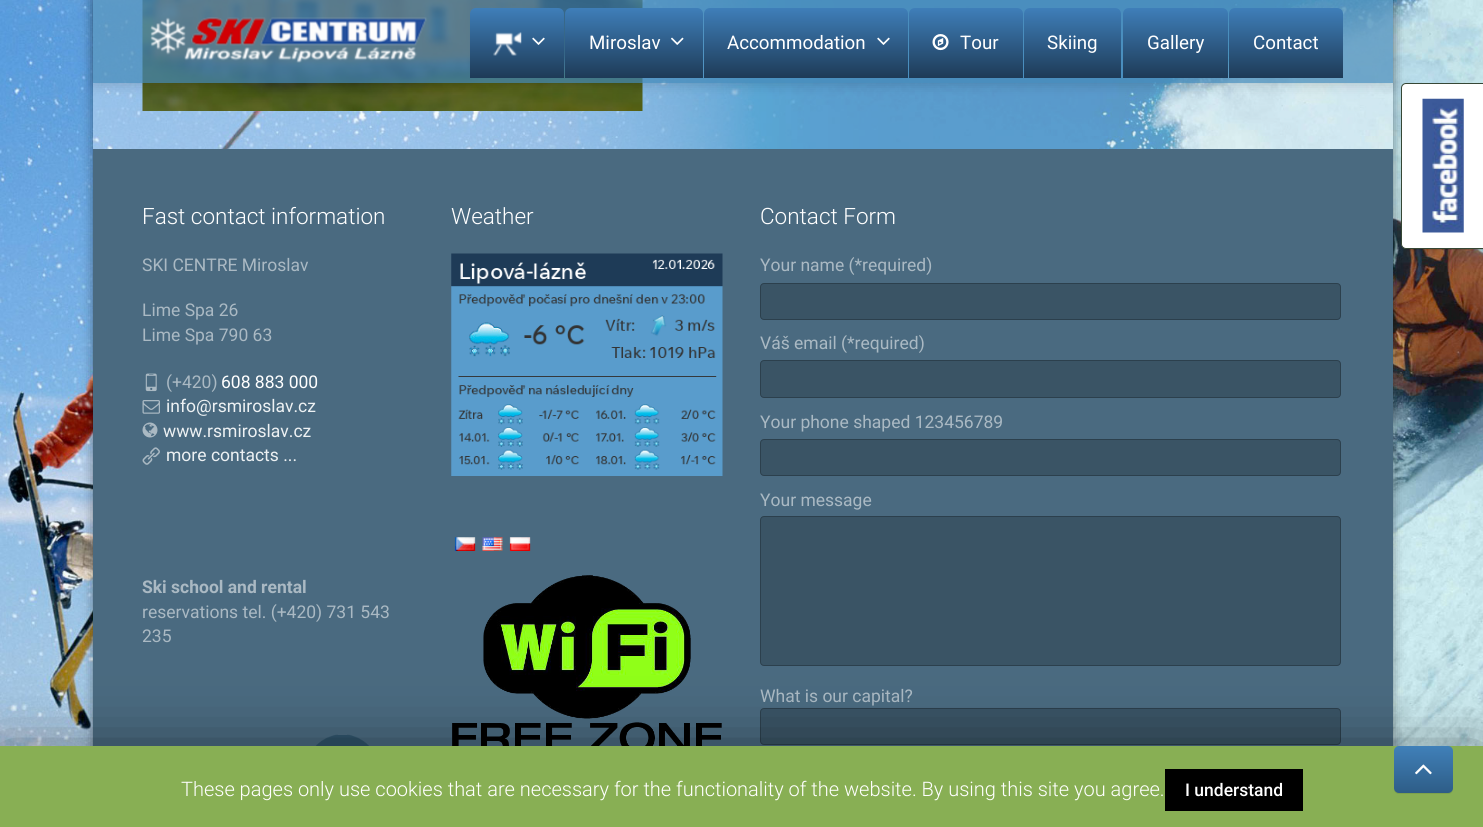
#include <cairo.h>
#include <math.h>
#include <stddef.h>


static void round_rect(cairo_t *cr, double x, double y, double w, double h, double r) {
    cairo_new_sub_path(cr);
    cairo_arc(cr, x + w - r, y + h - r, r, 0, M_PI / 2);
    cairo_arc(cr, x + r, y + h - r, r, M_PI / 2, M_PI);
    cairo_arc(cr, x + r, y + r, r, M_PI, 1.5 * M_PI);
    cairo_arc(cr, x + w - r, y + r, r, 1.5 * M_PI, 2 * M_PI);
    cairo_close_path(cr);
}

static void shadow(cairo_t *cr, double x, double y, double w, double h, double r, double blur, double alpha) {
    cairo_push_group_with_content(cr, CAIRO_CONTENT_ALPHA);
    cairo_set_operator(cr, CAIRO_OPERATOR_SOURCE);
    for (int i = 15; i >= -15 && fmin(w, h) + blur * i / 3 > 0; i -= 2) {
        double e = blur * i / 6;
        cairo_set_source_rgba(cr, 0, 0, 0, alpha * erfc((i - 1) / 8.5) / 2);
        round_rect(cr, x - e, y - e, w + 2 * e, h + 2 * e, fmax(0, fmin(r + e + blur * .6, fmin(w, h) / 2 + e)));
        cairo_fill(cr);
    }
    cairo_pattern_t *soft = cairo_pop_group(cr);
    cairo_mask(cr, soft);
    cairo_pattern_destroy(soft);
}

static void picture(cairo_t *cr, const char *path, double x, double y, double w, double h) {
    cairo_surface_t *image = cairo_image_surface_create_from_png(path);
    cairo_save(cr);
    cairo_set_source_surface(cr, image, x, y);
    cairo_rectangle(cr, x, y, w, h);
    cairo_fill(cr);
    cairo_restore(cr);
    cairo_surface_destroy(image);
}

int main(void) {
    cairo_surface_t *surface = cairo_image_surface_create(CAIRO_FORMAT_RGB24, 1483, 827);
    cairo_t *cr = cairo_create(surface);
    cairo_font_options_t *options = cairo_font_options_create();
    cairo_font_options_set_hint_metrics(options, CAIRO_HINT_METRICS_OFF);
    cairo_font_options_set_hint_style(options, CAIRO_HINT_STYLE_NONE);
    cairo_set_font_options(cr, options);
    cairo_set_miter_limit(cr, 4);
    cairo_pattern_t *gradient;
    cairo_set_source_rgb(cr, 1, 1, 1);
    cairo_paint(cr);
    picture(cr, "img1.png", 0, 0, 1483, 746);
    cairo_save(cr);
    cairo_set_fill_rule(cr, CAIRO_FILL_RULE_EVEN_ODD);
    cairo_new_path(cr);
    cairo_move_to(cr, 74, 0);
    cairo_line_to(cr, 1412, 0);
    cairo_line_to(cr, 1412, 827);
    cairo_line_to(cr, 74, 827);
    cairo_close_path(cr);
    cairo_move_to(cr, 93, -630);
    cairo_line_to(cr, 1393, -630);
    cairo_line_to(cr, 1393, 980);
    cairo_line_to(cr, 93, 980);
    cairo_close_path(cr);
    cairo_clip(cr);
    cairo_set_source_rgb(cr, 0, 0, 0);
    shadow(cr, 93, -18, 1300, 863, 0, 6, 0.4);
    cairo_restore(cr);
    cairo_set_source_rgba(cr, 1, 1, 1, 0.35);
    cairo_rectangle(cr, 93, 0, 1300, 149);
    cairo_fill(cr);
    picture(cr, "img2.png", 142, 0, 501, 111);
    cairo_save(cr);
    cairo_set_fill_rule(cr, CAIRO_FILL_RULE_EVEN_ODD);
    cairo_new_path(cr);
    cairo_move_to(cr, 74, 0);
    cairo_line_to(cr, 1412, 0);
    cairo_line_to(cr, 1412, 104);
    cairo_line_to(cr, 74, 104);
    cairo_close_path(cr);
    cairo_move_to(cr, 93, 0);
    cairo_line_to(cr, 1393, 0);
    cairo_line_to(cr, 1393, 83);
    cairo_line_to(cr, 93, 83);
    cairo_close_path(cr);
    cairo_clip(cr);
    cairo_set_source_rgb(cr, 0, 0, 0);
    shadow(cr, 93, 3, 1300, 82, 0, 6, 0.15);
    cairo_restore(cr);
    cairo_set_source_rgba(cr, 0.263, 0.537, 0.725, 0.7);
    cairo_rectangle(cr, 93, 0, 1300, 83);
    cairo_fill(cr);
    picture(cr, "img3.png", 150, 17, 277, 46);
    gradient = cairo_pattern_create_linear(517, 7.5, 517, 78);
    cairo_pattern_add_color_stop_rgba(gradient, 0, 0.247, 0.498, 0.729, 1);
    cairo_pattern_add_color_stop_rgba(gradient, 1, 0.118, 0.231, 0.341, 1);
    cairo_set_source(cr, gradient);
    cairo_pattern_destroy(gradient);
    cairo_new_path(cr);
    cairo_move_to(cr, 476, 8);
    cairo_line_to(cr, 558, 8);
    cairo_curve_to(cr, 561.5, 8, 564, 10.5, 564, 14);
    cairo_line_to(cr, 564, 78);
    cairo_line_to(cr, 470, 78);
    cairo_line_to(cr, 470, 14);
    cairo_curve_to(cr, 470, 10.5, 472.5, 8, 476, 8);
    cairo_close_path(cr);
    cairo_fill(cr);
    picture(cr, "img4.png", 493, 32, 29, 24);
    picture(cr, "img5.png", 532, 37, 13, 8);
    gradient = cairo_pattern_create_linear(634, 7.5, 634, 78);
    cairo_pattern_add_color_stop_rgba(gradient, 0, 0.247, 0.498, 0.729, 1);
    cairo_pattern_add_color_stop_rgba(gradient, 1, 0.118, 0.231, 0.341, 1);
    cairo_set_source(cr, gradient);
    cairo_pattern_destroy(gradient);
    cairo_new_path(cr);
    cairo_move_to(cr, 571, 8);
    cairo_line_to(cr, 697, 8);
    cairo_curve_to(cr, 700.5, 8, 703, 10.5, 703, 14);
    cairo_line_to(cr, 703, 78);
    cairo_line_to(cr, 565, 78);
    cairo_line_to(cr, 565, 14);
    cairo_curve_to(cr, 565, 10.5, 567.5, 8, 571, 8);
    cairo_close_path(cr);
    cairo_fill(cr);
    cairo_select_font_face(cr, "Roboto", CAIRO_FONT_SLANT_NORMAL, CAIRO_FONT_WEIGHT_NORMAL);
    cairo_set_font_size(cr, 18.75);
    cairo_set_source_rgb(cr, 1, 1, 1);
    cairo_move_to(cr, 589, 49);
    cairo_show_text(cr, "Miroslav");
    picture(cr, "img6.png", 671, 37, 13, 8);
    gradient = cairo_pattern_create_linear(806, 7.5, 806, 78);
    cairo_pattern_add_color_stop_rgba(gradient, 0, 0.247, 0.498, 0.729, 1);
    cairo_pattern_add_color_stop_rgba(gradient, 1, 0.118, 0.231, 0.341, 1);
    cairo_set_source(cr, gradient);
    cairo_pattern_destroy(gradient);
    cairo_new_path(cr);
    cairo_move_to(cr, 710, 8);
    cairo_line_to(cr, 902, 8);
    cairo_curve_to(cr, 905.5, 8, 908, 10.5, 908, 14);
    cairo_line_to(cr, 908, 78);
    cairo_line_to(cr, 704, 78);
    cairo_line_to(cr, 704, 14);
    cairo_curve_to(cr, 704, 10.5, 706.5, 8, 710, 8);
    cairo_close_path(cr);
    cairo_fill(cr);
    cairo_set_source_rgb(cr, 1, 1, 1);
    cairo_move_to(cr, 727, 49);
    cairo_show_text(cr, "Accommodation");
    picture(cr, "img5.png", 877, 37, 13, 8);
    gradient = cairo_pattern_create_linear(966, 7.5, 966, 78);
    cairo_pattern_add_color_stop_rgba(gradient, 0, 0.247, 0.498, 0.729, 1);
    cairo_pattern_add_color_stop_rgba(gradient, 1, 0.118, 0.231, 0.341, 1);
    cairo_set_source(cr, gradient);
    cairo_pattern_destroy(gradient);
    cairo_new_path(cr);
    cairo_move_to(cr, 915, 8);
    cairo_line_to(cr, 1017, 8);
    cairo_curve_to(cr, 1020.5, 8, 1023, 10.5, 1023, 14);
    cairo_line_to(cr, 1023, 78);
    cairo_line_to(cr, 909, 78);
    cairo_line_to(cr, 909, 14);
    cairo_curve_to(cr, 909, 10.5, 911.5, 8, 915, 8);
    cairo_close_path(cr);
    cairo_fill(cr);
    picture(cr, "img7.png", 932, 34, 17, 17);
    cairo_set_source_rgb(cr, 1, 1, 1);
    cairo_move_to(cr, 960, 49);
    cairo_show_text(cr, "Tour");
    gradient = cairo_pattern_create_linear(1073, 7.5, 1073, 78);
    cairo_pattern_add_color_stop_rgba(gradient, 0, 0.247, 0.498, 0.729, 1);
    cairo_pattern_add_color_stop_rgba(gradient, 1, 0.118, 0.231, 0.341, 1);
    cairo_set_source(cr, gradient);
    cairo_pattern_destroy(gradient);
    cairo_new_path(cr);
    cairo_move_to(cr, 1030, 8);
    cairo_line_to(cr, 1115, 8);
    cairo_curve_to(cr, 1118.5, 8, 1121, 10.5, 1121, 14);
    cairo_line_to(cr, 1121, 78);
    cairo_line_to(cr, 1024, 78);
    cairo_line_to(cr, 1024, 14);
    cairo_curve_to(cr, 1024, 10.5, 1026.5, 8, 1030, 8);
    cairo_close_path(cr);
    cairo_fill(cr);
    cairo_set_source_rgb(cr, 1, 1, 1);
    cairo_move_to(cr, 1047, 49);
    cairo_show_text(cr, "Skiing");
    gradient = cairo_pattern_create_linear(1175, 7.5, 1175, 78);
    cairo_pattern_add_color_stop_rgba(gradient, 0, 0.247, 0.498, 0.729, 1);
    cairo_pattern_add_color_stop_rgba(gradient, 1, 0.118, 0.231, 0.341, 1);
    cairo_set_source(cr, gradient);
    cairo_pattern_destroy(gradient);
    cairo_new_path(cr);
    cairo_move_to(cr, 1129, 8);
    cairo_line_to(cr, 1222, 8);
    cairo_curve_to(cr, 1225.5, 8, 1228, 10.5, 1228, 14);
    cairo_line_to(cr, 1228, 78);
    cairo_line_to(cr, 1123, 78);
    cairo_line_to(cr, 1123, 14);
    cairo_curve_to(cr, 1123, 10.5, 1125.5, 8, 1129, 8);
    cairo_close_path(cr);
    cairo_fill(cr);
    cairo_set_source_rgb(cr, 1, 1, 1);
    cairo_move_to(cr, 1147, 49);
    cairo_show_text(cr, "Gallery");
    gradient = cairo_pattern_create_linear(1286, 7.5, 1286, 78);
    cairo_pattern_add_color_stop_rgba(gradient, 0, 0.247, 0.498, 0.729, 1);
    cairo_pattern_add_color_stop_rgba(gradient, 1, 0.118, 0.231, 0.341, 1);
    cairo_set_source(cr, gradient);
    cairo_pattern_destroy(gradient);
    cairo_new_path(cr);
    cairo_move_to(cr, 1235, 8);
    cairo_line_to(cr, 1337, 8);
    cairo_curve_to(cr, 1340.5, 8, 1343, 10.5, 1343, 14);
    cairo_line_to(cr, 1343, 78);
    cairo_line_to(cr, 1229, 78);
    cairo_line_to(cr, 1229, 14);
    cairo_curve_to(cr, 1229, 10.5, 1231.5, 8, 1235, 8);
    cairo_close_path(cr);
    cairo_fill(cr);
    cairo_set_source_rgb(cr, 1, 1, 1);
    cairo_move_to(cr, 1253, 49);
    cairo_show_text(cr, "Contact");
    cairo_set_source_rgb(cr, 0.29, 0.416, 0.502);
    cairo_rectangle(cr, 93, 149, 1300, 597);
    cairo_fill(cr);
    cairo_select_font_face(cr, "Roboto Light", CAIRO_FONT_SLANT_NORMAL, CAIRO_FONT_WEIGHT_NORMAL);
    cairo_set_font_size(cr, 22.5);
    cairo_set_source_rgb(cr, 1, 1, 1);
    cairo_move_to(cr, 142, 224);
    cairo_show_text(cr, "Fast contact information");
    cairo_select_font_face(cr, "Roboto", CAIRO_FONT_SLANT_NORMAL, CAIRO_FONT_WEIGHT_NORMAL);
    cairo_set_font_size(cr, 17.5);
    cairo_set_source_rgb(cr, 0.667, 0.725, 0.765);
    cairo_move_to(cr, 142, 271);
    cairo_show_text(cr, "SKI CENTRE Miroslav");
    cairo_move_to(cr, 142, 316);
    cairo_show_text(cr, "Lime Spa 26");
    cairo_move_to(cr, 142, 341);
    cairo_show_text(cr, "Lime Spa 790 63");
    picture(cr, "img8.png", 145, 373, 12, 19);
    cairo_move_to(cr, 166, 388);
    cairo_show_text(cr, "(+420)");
    cairo_set_source_rgb(cr, 1, 1, 1);
    cairo_move_to(cr, 221, 388);
    cairo_show_text(cr, "608 883 000");
    picture(cr, "img9.png", 142, 400, 18, 14);
    cairo_set_source_rgb(cr, 0.929, 0.945, 0.953);
    cairo_move_to(cr, 166, 412);
    cairo_show_text(cr, "info@rsmiroslav.cz");
    picture(cr, "img10.png", 142, 422, 16, 16);
    cairo_move_to(cr, 163, 437);
    cairo_show_text(cr, "www.rsmiroslav.cz");
    picture(cr, "img11.png", 142, 447, 18, 18);
    cairo_move_to(cr, 166, 461);
    cairo_show_text(cr, "more contacts ...");
    cairo_select_font_face(cr, "Roboto", CAIRO_FONT_SLANT_NORMAL, CAIRO_FONT_WEIGHT_BOLD);
    cairo_set_source_rgb(cr, 0.667, 0.725, 0.765);
    cairo_move_to(cr, 142, 593);
    cairo_show_text(cr, "Ski school and rental");
    cairo_select_font_face(cr, "Roboto", CAIRO_FONT_SLANT_NORMAL, CAIRO_FONT_WEIGHT_NORMAL);
    cairo_move_to(cr, 142, 618);
    cairo_show_text(cr, "reservations tel. (+420) 731 543");
    cairo_move_to(cr, 142, 642);
    cairo_show_text(cr, "235");
    picture(cr, "img12.png", 315, 734, 55, 12);
    cairo_select_font_face(cr, "Roboto Light", CAIRO_FONT_SLANT_NORMAL, CAIRO_FONT_WEIGHT_NORMAL);
    cairo_set_font_size(cr, 22.5);
    cairo_set_source_rgb(cr, 1, 1, 1);
    cairo_move_to(cr, 451, 224);
    cairo_show_text(cr, "Weather");
    picture(cr, "img13.png", 451, 253, 272, 223);
    picture(cr, "img14.png", 454, 537, 22, 14);
    picture(cr, "img15.png", 482, 537, 21, 14);
    picture(cr, "img16.png", 509, 537, 22, 14);
    picture(cr, "img17.png", 452, 575, 270, 171);
    cairo_move_to(cr, 760, 224);
    cairo_show_text(cr, "Contact Form");
    cairo_select_font_face(cr, "Roboto", CAIRO_FONT_SLANT_NORMAL, CAIRO_FONT_WEIGHT_NORMAL);
    cairo_set_font_size(cr, 17.5);
    cairo_set_source_rgb(cr, 0.667, 0.725, 0.765);
    cairo_move_to(cr, 760, 271);
    cairo_show_text(cr, "Your name (*required)");
    cairo_set_source_rgb(cr, 0.227, 0.329, 0.396);
    round_rect(cr, 760.5, 283.5, 580, 36, 3.5);
    cairo_fill_preserve(cr);
    cairo_set_source_rgb(cr, 0.173, 0.251, 0.302);
    cairo_set_line_width(cr, 1);
    cairo_stroke(cr);
    cairo_set_source_rgb(cr, 0.667, 0.725, 0.765);
    cairo_move_to(cr, 760, 349);
    cairo_show_text(cr, "Váš email (*required)");
    cairo_set_source_rgb(cr, 0.227, 0.329, 0.396);
    round_rect(cr, 760.5, 360.5, 580, 37, 3.5);
    cairo_fill_preserve(cr);
    cairo_set_source_rgb(cr, 0.173, 0.251, 0.302);
    cairo_stroke(cr);
    cairo_set_source_rgb(cr, 0.667, 0.725, 0.765);
    cairo_move_to(cr, 760, 428);
    cairo_show_text(cr, "Your phone shaped 123456789");
    cairo_set_source_rgb(cr, 0.227, 0.329, 0.396);
    round_rect(cr, 760.5, 439.5, 580, 36, 3.5);
    cairo_fill_preserve(cr);
    cairo_set_source_rgb(cr, 0.173, 0.251, 0.302);
    cairo_stroke(cr);
    cairo_set_source_rgb(cr, 0.667, 0.725, 0.765);
    cairo_move_to(cr, 760, 506);
    cairo_show_text(cr, "Your message");
    cairo_set_source_rgb(cr, 0.227, 0.329, 0.396);
    round_rect(cr, 760.5, 516.5, 580, 149, 3.5);
    cairo_fill_preserve(cr);
    cairo_set_source_rgb(cr, 0.173, 0.251, 0.302);
    cairo_stroke(cr);
    cairo_set_source_rgb(cr, 0.667, 0.725, 0.765);
    cairo_move_to(cr, 760, 702);
    cairo_show_text(cr, "What is our capital?");
    cairo_set_source_rgb(cr, 0.227, 0.329, 0.396);
    round_rect(cr, 760.5, 708.5, 580, 36, 3.5);
    cairo_fill_preserve(cr);
    cairo_set_source_rgb(cr, 0.173, 0.251, 0.302);
    cairo_stroke(cr);
    cairo_set_source_rgba(cr, 0, 0, 0, 0.08);
    cairo_new_path(cr);
    cairo_move_to(cr, 1401, 87);
    cairo_line_to(cr, 1401, 245);
    cairo_curve_to(cr, 1401, 248, 1403, 250, 1406, 250);
    cairo_line_to(cr, 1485, 250);
    cairo_curve_to(cr, 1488, 250, 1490, 248, 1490, 245);
    cairo_line_to(cr, 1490, 244);
    cairo_curve_to(cr, 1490, 247, 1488, 249, 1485, 249);
    cairo_line_to(cr, 1406, 249);
    cairo_curve_to(cr, 1403, 249, 1401, 247, 1401, 244);
    cairo_close_path(cr);
    cairo_fill(cr);
    cairo_set_source_rgb(cr, 0, 0, 0);
    shadow(cr, 1401, 85, 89, 166, 5, 1, 0.05);
    cairo_set_source_rgb(cr, 1, 1, 1);
    round_rect(cr, 1401.5, 83.5, 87, 165, 4.5);
    cairo_fill_preserve(cr);
    cairo_set_source_rgb(cr, 0.212, 0.278, 0.208);
    cairo_stroke(cr);
    picture(cr, "img18.png", 1422, 98, 42, 135);
    cairo_set_source_rgb(cr, 0, 0, 0);
    shadow(cr, 0, 753, 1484, 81, 0, 31, 0.5);
    cairo_set_source_rgb(cr, 0.533, 0.686, 0.329);
    cairo_rectangle(cr, 0, 746, 1483, 81);
    cairo_fill(cr);
    cairo_select_font_face(cr, "Roboto Light", CAIRO_FONT_SLANT_NORMAL, CAIRO_FONT_WEIGHT_NORMAL);
    cairo_set_font_size(cr, 20);
    cairo_set_source_rgb(cr, 1, 1, 1);
    cairo_move_to(cr, 181, 796);
    cairo_show_text(cr, "These pages only use cookies that are necessary for the functionality of the website. By using this site you agree.");
    cairo_set_source_rgb(cr, 0, 0, 0);
    cairo_rectangle(cr, 1165, 769, 138, 42);
    cairo_fill(cr);
    cairo_select_font_face(cr, "Roboto Medium", CAIRO_FONT_SLANT_NORMAL, CAIRO_FONT_WEIGHT_NORMAL);
    cairo_set_font_size(cr, 17.5);
    cairo_set_source_rgb(cr, 1, 1, 1);
    cairo_move_to(cr, 1185, 796);
    cairo_show_text(cr, "I understand");
    cairo_set_source_rgb(cr, 0.49, 0.631, 0.302);
    cairo_new_path(cr);
    cairo_move_to(cr, 1394, 789);
    cairo_curve_to(cr, 1394, 792, 1396, 794, 1399, 794);
    cairo_line_to(cr, 1448, 794);
    cairo_curve_to(cr, 1451, 794, 1453, 792, 1453, 789);
    cairo_line_to(cr, 1453, 753);
    cairo_line_to(cr, 1452, 751);
    cairo_line_to(cr, 1452, 775);
    cairo_curve_to(cr, 1452, 792, 1455, 792, 1439, 792);
    cairo_line_to(cr, 1407, 792);
    cairo_curve_to(cr, 1403, 792, 1396, 794, 1394, 789);
    cairo_close_path(cr);
    cairo_fill(cr);
    gradient = cairo_pattern_create_linear(1423, 746, 1423, 793);
    cairo_pattern_add_color_stop_rgba(gradient, 0, 0.251, 0.502, 0.725, 1);
    cairo_pattern_add_color_stop_rgba(gradient, 1, 0.18, 0.365, 0.529, 1);
    cairo_set_source(cr, gradient);
    cairo_pattern_destroy(gradient);
    round_rect(cr, 1394, 746, 59, 47, 5);
    cairo_fill(cr);
    picture(cr, "img19.png", 1415, 764, 17, 11);
    cairo_surface_write_to_png(surface, "page.png");
    cairo_font_options_destroy(options);
    cairo_destroy(cr);
    cairo_surface_destroy(surface);
    return 0;
}
